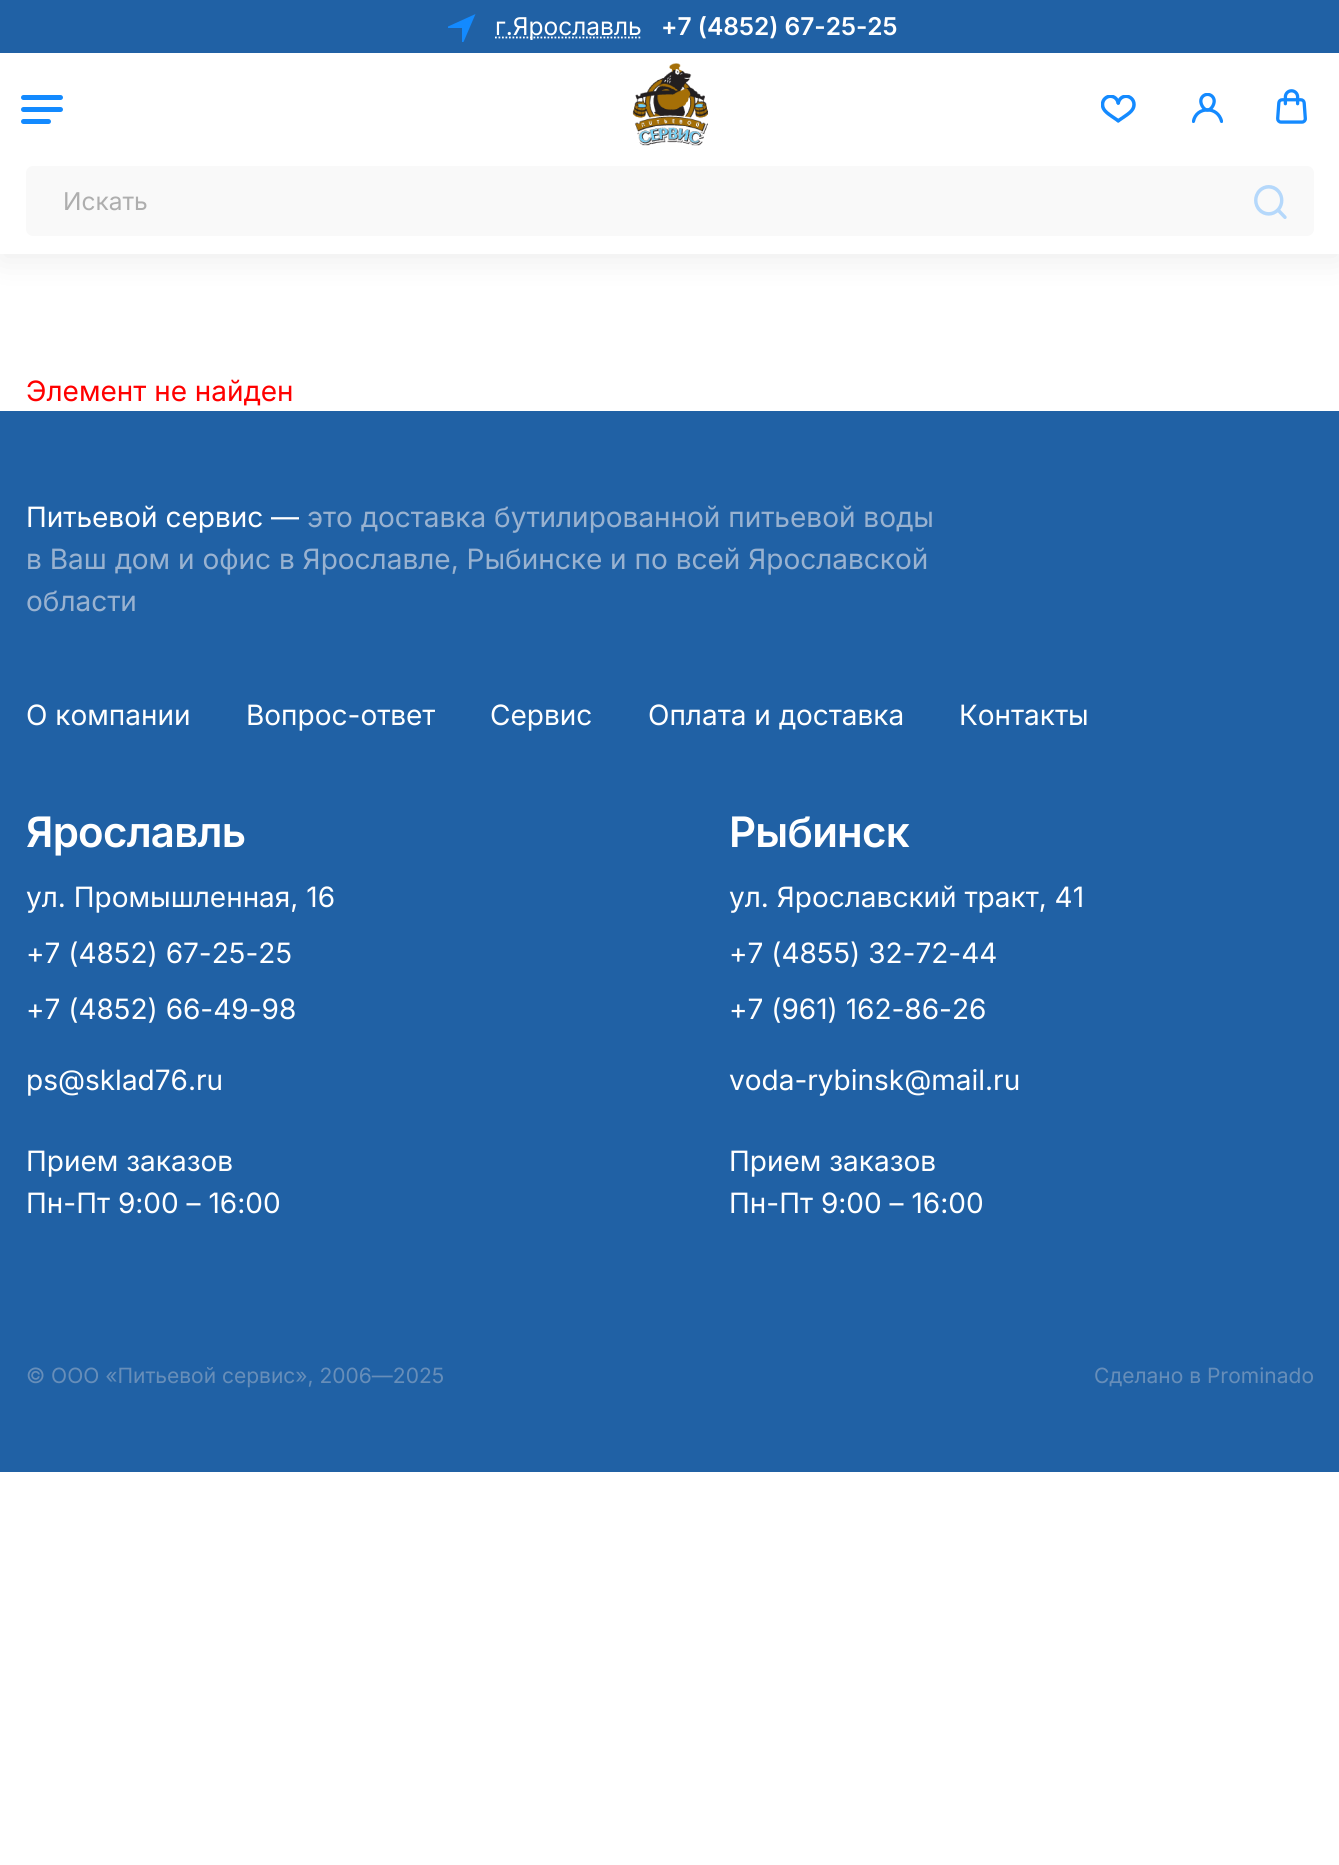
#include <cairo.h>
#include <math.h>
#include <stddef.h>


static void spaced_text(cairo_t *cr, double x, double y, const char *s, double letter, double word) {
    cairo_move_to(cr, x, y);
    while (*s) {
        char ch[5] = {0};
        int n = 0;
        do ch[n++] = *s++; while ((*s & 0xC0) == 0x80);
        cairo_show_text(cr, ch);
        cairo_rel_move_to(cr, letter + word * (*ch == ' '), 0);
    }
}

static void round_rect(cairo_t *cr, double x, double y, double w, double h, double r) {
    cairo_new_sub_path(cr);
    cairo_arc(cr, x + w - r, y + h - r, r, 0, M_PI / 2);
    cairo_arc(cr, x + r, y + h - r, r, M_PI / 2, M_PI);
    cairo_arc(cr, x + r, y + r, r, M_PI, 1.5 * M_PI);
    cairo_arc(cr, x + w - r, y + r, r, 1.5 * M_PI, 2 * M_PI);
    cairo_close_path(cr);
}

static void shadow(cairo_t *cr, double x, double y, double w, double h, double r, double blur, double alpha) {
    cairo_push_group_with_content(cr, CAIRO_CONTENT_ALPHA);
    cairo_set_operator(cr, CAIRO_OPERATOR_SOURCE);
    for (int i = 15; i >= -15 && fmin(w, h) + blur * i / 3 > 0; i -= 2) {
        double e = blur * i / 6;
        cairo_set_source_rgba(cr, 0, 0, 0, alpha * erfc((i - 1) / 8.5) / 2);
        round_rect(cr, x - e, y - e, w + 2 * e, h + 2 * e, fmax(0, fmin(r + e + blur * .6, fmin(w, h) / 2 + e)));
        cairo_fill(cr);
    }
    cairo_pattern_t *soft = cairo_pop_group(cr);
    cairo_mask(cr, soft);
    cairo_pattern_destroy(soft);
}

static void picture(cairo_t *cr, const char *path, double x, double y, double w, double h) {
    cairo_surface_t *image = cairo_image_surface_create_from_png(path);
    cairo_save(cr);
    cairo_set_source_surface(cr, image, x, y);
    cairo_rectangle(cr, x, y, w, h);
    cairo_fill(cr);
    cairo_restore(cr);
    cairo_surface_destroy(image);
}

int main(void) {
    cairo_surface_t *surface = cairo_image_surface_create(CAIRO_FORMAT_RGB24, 1339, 1865);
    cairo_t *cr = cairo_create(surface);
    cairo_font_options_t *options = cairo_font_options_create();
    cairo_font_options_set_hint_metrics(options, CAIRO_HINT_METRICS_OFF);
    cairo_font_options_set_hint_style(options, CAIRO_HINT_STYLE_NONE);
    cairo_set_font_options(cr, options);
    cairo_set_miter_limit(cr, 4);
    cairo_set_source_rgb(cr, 1, 1, 1);
    cairo_paint(cr);
    cairo_set_source_rgb(cr, 0, 0, 0);
    shadow(cr, 0, 60, 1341, 201, 0, 16.5, 0.07);
    cairo_set_source_rgb(cr, 0.125, 0.38, 0.647);
    cairo_rectangle(cr, 0, 0, 1339, 53);
    cairo_fill(cr);
    cairo_set_source_rgb(cr, 0.078, 0.541, 1);
    cairo_new_path(cr);
    cairo_move_to(cr, 462, 28);
    cairo_line_to(cr, 448, 28);
    cairo_line_to(cr, 448, 26.5);
    cairo_line_to(cr, 475.5, 14);
    cairo_line_to(cr, 463.5, 42);
    cairo_line_to(cr, 462, 42);
    cairo_close_path(cr);
    cairo_fill(cr);
    cairo_new_path(cr);
    cairo_move_to(cr, 495, 37.5);
    cairo_line_to(cr, 641.5, 37.5);
    cairo_set_source_rgb(cr, 1, 1, 1);
    cairo_set_line_width(cr, 1.8);
    cairo_set_dash(cr, (double[]){1.75, 1.75}, 2, 0);
    cairo_stroke(cr);
    cairo_select_font_face(cr, "Inter", CAIRO_FONT_SLANT_NORMAL, CAIRO_FONT_WEIGHT_NORMAL);
    cairo_set_font_size(cr, 24.5);
    cairo_move_to(cr, 495, 35);
    cairo_show_text(cr, "г.Ярославль");
    cairo_select_font_face(cr, "Inter SemiBold", CAIRO_FONT_SLANT_NORMAL, CAIRO_FONT_WEIGHT_NORMAL);
    cairo_move_to(cr, 661, 35);
    cairo_show_text(cr, "+7 (4852) 67-25-25");
    cairo_rectangle(cr, 0, 53, 1339, 201);
    cairo_fill(cr);
    cairo_set_source_rgb(cr, 0.078, 0.541, 1);
    round_rect(cr, 21, 95, 42, 5, 2.5);
    cairo_fill(cr);
    round_rect(cr, 21, 107, 42, 5, 2.5);
    cairo_fill(cr);
    round_rect(cr, 21, 119, 30, 5, 2.5);
    cairo_fill(cr);
    picture(cr, "img1.png", 632, 63, 76, 83);
    picture(cr, "img2.png", 1101, 95, 35, 28);
    picture(cr, "img3.png", 1192, 93, 31, 30);
    picture(cr, "img4.png", 1276, 89, 31, 35);
    cairo_set_source_rgb(cr, 0.973, 0.973, 0.973);
    round_rect(cr, 26, 166, 1288, 70, 7);
    cairo_fill(cr);
    cairo_select_font_face(cr, "Inter", CAIRO_FONT_SLANT_NORMAL, CAIRO_FONT_WEIGHT_NORMAL);
    cairo_set_source_rgb(cr, 0.682, 0.682, 0.682);
    cairo_move_to(cr, 63, 210);
    cairo_show_text(cr, "Искать");
    picture(cr, "img5.png", 1254, 185, 33, 34);
    cairo_set_font_size(cr, 28);
    cairo_set_source_rgb(cr, 1, 0, 0);
    cairo_move_to(cr, 26, 401);
    cairo_show_text(cr, "Элемент не найден");
    cairo_set_source_rgb(cr, 0.125, 0.38, 0.647);
    cairo_rectangle(cr, 0, 411, 1339, 1061);
    cairo_fill(cr);
    cairo_set_source_rgb(cr, 1, 1, 1);
    cairo_move_to(cr, 26, 527);
    cairo_show_text(cr, "Питьевой сервис —");
    cairo_set_source_rgb(cr, 0.6, 0.698, 0.816);
    cairo_move_to(cr, 307, 527);
    cairo_show_text(cr, "это доставка бутилированной питьевой воды");
    cairo_move_to(cr, 26, 569);
    cairo_show_text(cr, "в Ваш дом и офис в Ярославле, Рыбинске и по всей Ярославской");
    cairo_move_to(cr, 26, 611);
    cairo_show_text(cr, "области");
    cairo_set_source_rgb(cr, 1, 1, 1);
    cairo_move_to(cr, 26, 725);
    cairo_show_text(cr, "О компании");
    cairo_move_to(cr, 246, 725);
    cairo_show_text(cr, "Вопрос-ответ");
    cairo_move_to(cr, 490, 725);
    cairo_show_text(cr, "Сервис");
    cairo_move_to(cr, 648, 725);
    cairo_show_text(cr, "Оплата и доставка");
    cairo_move_to(cr, 959, 725);
    cairo_show_text(cr, "Контакты");
    cairo_select_font_face(cr, "Inter SemiBold", CAIRO_FONT_SLANT_NORMAL, CAIRO_FONT_WEIGHT_NORMAL);
    cairo_set_font_size(cr, 42);
    spaced_text(cr, 26, 847, "Ярославль", -0.75, 0);
    cairo_select_font_face(cr, "Inter", CAIRO_FONT_SLANT_NORMAL, CAIRO_FONT_WEIGHT_NORMAL);
    cairo_set_font_size(cr, 28);
    cairo_move_to(cr, 26, 907);
    cairo_show_text(cr, "ул. Промышленная, 16");
    cairo_move_to(cr, 26, 963);
    cairo_show_text(cr, "+7 (4852) 67-25-25");
    cairo_move_to(cr, 26, 1019);
    cairo_show_text(cr, "+7 (4852) 66-49-98");
    cairo_move_to(cr, 26, 1090);
    cairo_show_text(cr, "ps@sklad76.ru");
    cairo_move_to(cr, 26, 1171);
    cairo_show_text(cr, "Прием заказов");
    cairo_move_to(cr, 26, 1213);
    cairo_show_text(cr, "Пн-Пт 9:00 – 16:00");
    cairo_select_font_face(cr, "Inter SemiBold", CAIRO_FONT_SLANT_NORMAL, CAIRO_FONT_WEIGHT_NORMAL);
    cairo_set_font_size(cr, 42);
    spaced_text(cr, 729, 847, "Рыбинск", -0.75, 0);
    cairo_select_font_face(cr, "Inter", CAIRO_FONT_SLANT_NORMAL, CAIRO_FONT_WEIGHT_NORMAL);
    cairo_set_font_size(cr, 28);
    cairo_move_to(cr, 729, 907);
    cairo_show_text(cr, "ул. Ярославский тракт, 41");
    cairo_move_to(cr, 729, 963);
    cairo_show_text(cr, "+7 (4855) 32-72-44");
    cairo_move_to(cr, 729, 1019);
    cairo_show_text(cr, "+7 (961) 162-86-26");
    cairo_move_to(cr, 729, 1090);
    cairo_show_text(cr, "voda-rybinsk@mail.ru");
    cairo_move_to(cr, 729, 1171);
    cairo_show_text(cr, "Прием заказов");
    cairo_move_to(cr, 729, 1213);
    cairo_show_text(cr, "Пн-Пт 9:00 – 16:00");
    cairo_set_font_size(cr, 21);
    cairo_set_source_rgb(cr, 0.404, 0.557, 0.725);
    cairo_move_to(cr, 26, 1383);
    cairo_show_text(cr, "© ООО «Питьевой сервис», 2006—2025");
    cairo_move_to(cr, 1094, 1383);
    cairo_show_text(cr, "Сделано в Prominado");
    cairo_surface_write_to_png(surface, "page.png");
    cairo_font_options_destroy(options);
    cairo_destroy(cr);
    cairo_surface_destroy(surface);
    return 0;
}
